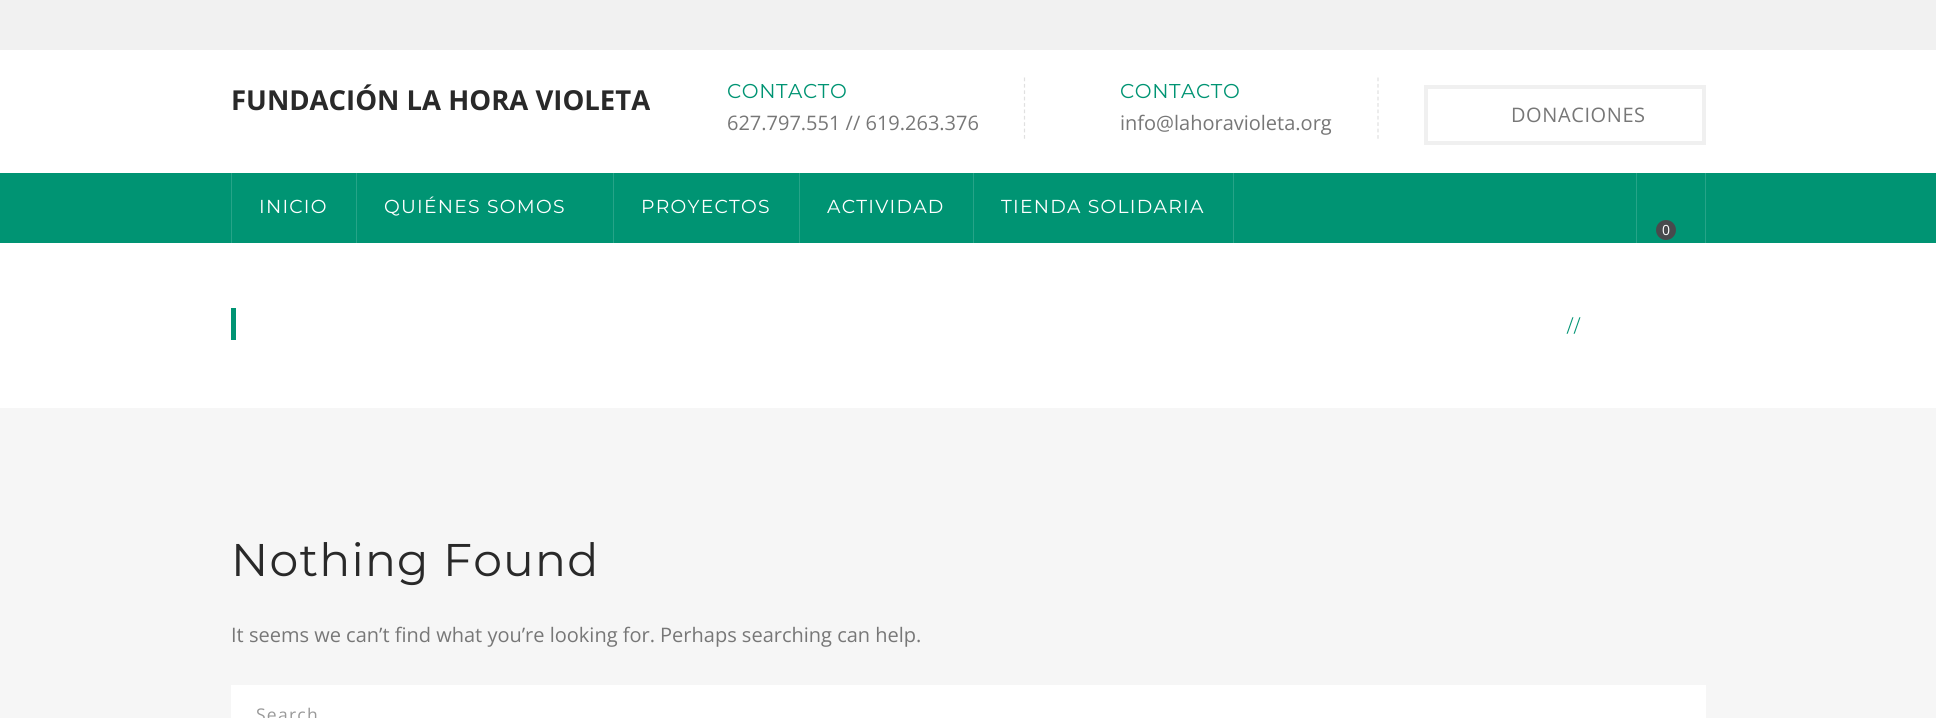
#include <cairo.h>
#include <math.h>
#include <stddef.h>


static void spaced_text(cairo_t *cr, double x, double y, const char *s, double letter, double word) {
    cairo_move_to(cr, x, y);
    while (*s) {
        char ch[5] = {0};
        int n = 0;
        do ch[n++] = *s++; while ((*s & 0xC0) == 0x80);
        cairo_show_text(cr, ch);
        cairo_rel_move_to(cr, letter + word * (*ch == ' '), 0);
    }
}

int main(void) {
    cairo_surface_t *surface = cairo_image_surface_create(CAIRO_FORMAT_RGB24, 1936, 718);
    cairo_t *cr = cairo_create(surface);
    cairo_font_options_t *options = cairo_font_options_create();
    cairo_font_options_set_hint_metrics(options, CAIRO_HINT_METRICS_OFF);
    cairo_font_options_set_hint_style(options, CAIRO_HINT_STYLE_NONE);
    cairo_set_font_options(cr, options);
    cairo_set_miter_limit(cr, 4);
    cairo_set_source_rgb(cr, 1, 1, 1);
    cairo_paint(cr);
    cairo_set_source_rgb(cr, 0.945, 0.945, 0.945);
    cairo_rectangle(cr, 0, 0, 1936, 50);
    cairo_fill(cr);
    cairo_select_font_face(cr, "Open Sans", CAIRO_FONT_SLANT_NORMAL, CAIRO_FONT_WEIGHT_BOLD);
    cairo_set_font_size(cr, 27.5);
    cairo_set_source_rgb(cr, 0.161, 0.161, 0.161);
    cairo_move_to(cr, 231, 110);
    cairo_show_text(cr, "FUNDACIÓN LA HORA VIOLETA");
    cairo_new_path(cr);
    cairo_move_to(cr, 1024.5, 77.5);
    cairo_line_to(cr, 1024.5, 139);
    cairo_set_source_rgb(cr, 0.878, 0.878, 0.878);
    cairo_set_line_width(cr, 1.2);
    cairo_set_dash(cr, (double[]){3.75, 2.64}, 2, 0);
    cairo_stroke(cr);
    cairo_select_font_face(cr, "Montserrat", CAIRO_FONT_SLANT_NORMAL, CAIRO_FONT_WEIGHT_NORMAL);
    cairo_set_font_size(cr, 20);
    cairo_set_source_rgb(cr, 0, 0.58, 0.451);
    spaced_text(cr, 727, 98, "CONTACTO", 0.6, 0);
    cairo_select_font_face(cr, "Open Sans", CAIRO_FONT_SLANT_NORMAL, CAIRO_FONT_WEIGHT_NORMAL);
    cairo_set_source_rgb(cr, 0.467, 0.467, 0.467);
    cairo_move_to(cr, 727, 130);
    cairo_show_text(cr, "627.797.551 // 619.263.376");
    cairo_new_path(cr);
    cairo_move_to(cr, 1378, 77.5);
    cairo_line_to(cr, 1378, 139);
    cairo_set_source_rgb(cr, 0.878, 0.878, 0.878);
    cairo_stroke(cr);
    cairo_select_font_face(cr, "Montserrat", CAIRO_FONT_SLANT_NORMAL, CAIRO_FONT_WEIGHT_NORMAL);
    cairo_set_source_rgb(cr, 0, 0.58, 0.451);
    spaced_text(cr, 1120, 98, "CONTACTO", 0.6, 0);
    cairo_select_font_face(cr, "Open Sans", CAIRO_FONT_SLANT_NORMAL, CAIRO_FONT_WEIGHT_NORMAL);
    cairo_set_source_rgb(cr, 0.467, 0.467, 0.467);
    cairo_move_to(cr, 1120, 130);
    cairo_show_text(cr, "info@lahoravioleta.org");
    cairo_rectangle(cr, 1426, 87, 278, 56);
    cairo_set_source_rgb(cr, 0.941, 0.941, 0.941);
    cairo_set_line_width(cr, 4);
    cairo_set_dash(cr, NULL, 0, 0);
    cairo_stroke(cr);
    cairo_set_source_rgb(cr, 0.467, 0.467, 0.467);
    spaced_text(cr, 1511, 122, "DONACIONES", 0.6, 0);
    cairo_set_source_rgb(cr, 0, 0.58, 0.451);
    cairo_rectangle(cr, 0, 173, 1936, 70);
    cairo_fill(cr);
    cairo_set_source_rgb(cr, 0.149, 0.643, 0.533);
    cairo_rectangle(cr, 356, 173, 1, 70);
    cairo_fill(cr);
    cairo_rectangle(cr, 231, 173, 1, 70);
    cairo_fill(cr);
    cairo_select_font_face(cr, "Montserrat", CAIRO_FONT_SLANT_NORMAL, CAIRO_FONT_WEIGHT_NORMAL);
    cairo_set_font_size(cr, 18.75);
    cairo_set_source_rgb(cr, 1, 1, 1);
    spaced_text(cr, 259, 213, "INICIO", 1.25, 0);
    cairo_set_source_rgb(cr, 0.149, 0.643, 0.533);
    cairo_rectangle(cr, 613, 173, 1, 70);
    cairo_fill(cr);
    cairo_set_source_rgb(cr, 1, 1, 1);
    spaced_text(cr, 384, 213, "QUIÉNES SOMOS", 1.25, 0);
    cairo_set_source_rgb(cr, 0.149, 0.643, 0.533);
    cairo_rectangle(cr, 799, 173, 1, 70);
    cairo_fill(cr);
    cairo_set_source_rgb(cr, 1, 1, 1);
    spaced_text(cr, 641, 213, "PROYECTOS", 1.25, 0);
    cairo_set_source_rgb(cr, 0.149, 0.643, 0.533);
    cairo_rectangle(cr, 973, 173, 1, 70);
    cairo_fill(cr);
    cairo_set_source_rgb(cr, 1, 1, 1);
    spaced_text(cr, 827, 213, "ACTIVIDAD", 1.25, 0);
    cairo_set_source_rgb(cr, 0.149, 0.643, 0.533);
    cairo_rectangle(cr, 1233, 173, 1, 70);
    cairo_fill(cr);
    cairo_set_source_rgb(cr, 1, 1, 1);
    spaced_text(cr, 1001, 213, "TIENDA SOLIDARIA", 1.25, 0);
    cairo_set_source_rgb(cr, 0.149, 0.643, 0.533);
    cairo_rectangle(cr, 1705, 173, 1, 70);
    cairo_fill(cr);
    cairo_rectangle(cr, 1636, 173, 1, 70);
    cairo_fill(cr);
    cairo_set_source_rgb(cr, 0.282, 0.29, 0.302);
    cairo_arc(cr, 1666, 230, 10, 0, 2 * M_PI);
    cairo_fill(cr);
    cairo_select_font_face(cr, "Open Sans", CAIRO_FONT_SLANT_NORMAL, CAIRO_FONT_WEIGHT_NORMAL);
    cairo_set_font_size(cr, 14);
    cairo_set_source_rgb(cr, 1, 1, 1);
    cairo_move_to(cr, 1662, 235);
    cairo_show_text(cr, "0");
    cairo_set_source_rgb(cr, 0, 0.58, 0.451);
    cairo_rectangle(cr, 231, 308, 5, 32);
    cairo_fill(cr);
    cairo_select_font_face(cr, "Montserrat", CAIRO_FONT_SLANT_NORMAL, CAIRO_FONT_WEIGHT_NORMAL);
    cairo_set_font_size(cr, 17.5);
    spaced_text(cr, 1567, 332, "//", 1.25, 0);
    cairo_set_source_rgb(cr, 0.961, 0.961, 0.961);
    cairo_rectangle(cr, 0, 408, 1936, 310);
    cairo_fill(cr);
    cairo_set_font_size(cr, 45.75);
    cairo_set_source_rgb(cr, 0.161, 0.161, 0.161);
    spaced_text(cr, 231, 576, "Nothing Found", 1.25, 0);
    cairo_select_font_face(cr, "Open Sans", CAIRO_FONT_SLANT_NORMAL, CAIRO_FONT_WEIGHT_NORMAL);
    cairo_set_font_size(cr, 20);
    cairo_set_source_rgb(cr, 0.467, 0.467, 0.467);
    cairo_move_to(cr, 231, 642);
    cairo_show_text(cr, "It seems we can’t find what you’re looking for. Perhaps searching can help.");
    cairo_set_source_rgb(cr, 1, 1, 1);
    cairo_rectangle(cr, 231, 685, 1475, 33);
    cairo_fill(cr);
    cairo_set_font_size(cr, 17.5);
    cairo_set_source_rgb(cr, 0.6, 0.6, 0.6);
    spaced_text(cr, 256, 721, "Search", 1.25, 0);
    cairo_surface_write_to_png(surface, "page.png");
    cairo_font_options_destroy(options);
    cairo_destroy(cr);
    cairo_surface_destroy(surface);
    return 0;
}
